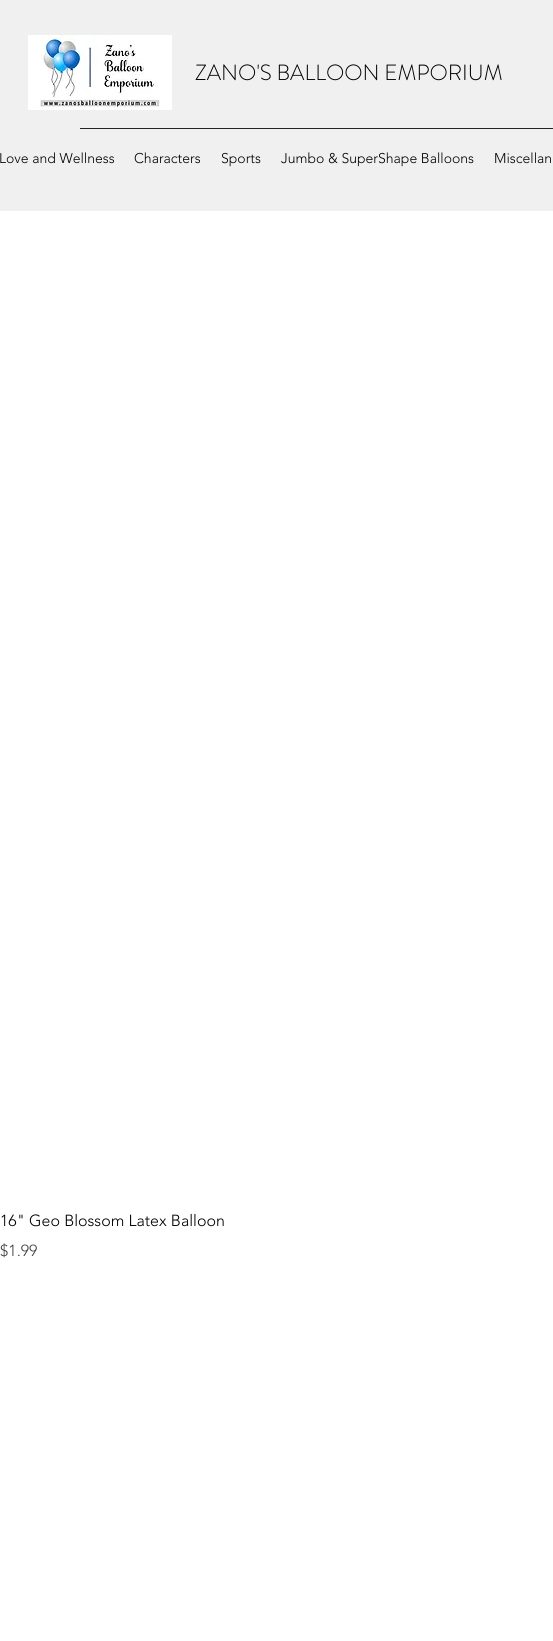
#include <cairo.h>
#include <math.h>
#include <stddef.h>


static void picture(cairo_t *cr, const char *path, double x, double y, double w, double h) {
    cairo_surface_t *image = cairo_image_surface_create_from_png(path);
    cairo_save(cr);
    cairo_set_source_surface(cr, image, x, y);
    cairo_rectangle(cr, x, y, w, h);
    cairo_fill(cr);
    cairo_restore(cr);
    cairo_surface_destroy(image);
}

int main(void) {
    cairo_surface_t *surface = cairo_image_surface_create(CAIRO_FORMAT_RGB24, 553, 1641);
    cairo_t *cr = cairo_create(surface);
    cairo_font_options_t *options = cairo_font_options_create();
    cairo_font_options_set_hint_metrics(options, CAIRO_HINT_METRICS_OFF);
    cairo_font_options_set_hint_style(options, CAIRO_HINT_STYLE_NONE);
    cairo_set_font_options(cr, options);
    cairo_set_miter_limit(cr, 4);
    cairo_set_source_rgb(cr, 1, 1, 1);
    cairo_paint(cr);
    cairo_set_source_rgb(cr, 0.941, 0.941, 0.941);
    cairo_rectangle(cr, 0, 0, 553, 211);
    cairo_fill(cr);
    picture(cr, "img1.png", 28, 35, 144, 75);
    cairo_select_font_face(cr, "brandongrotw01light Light", CAIRO_FONT_SLANT_NORMAL, CAIRO_FONT_WEIGHT_NORMAL);
    cairo_set_font_size(cr, 22);
    cairo_set_source_rgb(cr, 0, 0, 0);
    cairo_move_to(cr, 195, 80);
    cairo_show_text(cr, "ZANO'S BALLOON EMPORIUM");
    cairo_set_source_rgb(cr, 0.141, 0.141, 0.141);
    cairo_rectangle(cr, 80, 128, 473, 1);
    cairo_fill(cr);
    cairo_select_font_face(cr, "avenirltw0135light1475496 Light", CAIRO_FONT_SLANT_NORMAL, CAIRO_FONT_WEIGHT_NORMAL);
    cairo_set_font_size(cr, 14);
    cairo_set_source_rgb(cr, 0, 0, 0);
    cairo_move_to(cr, -1, 163);
    cairo_show_text(cr, "Love and Wellness");
    cairo_move_to(cr, 134, 163);
    cairo_show_text(cr, "Characters");
    cairo_move_to(cr, 221, 163);
    cairo_show_text(cr, "Sports");
    cairo_move_to(cr, 281, 163);
    cairo_show_text(cr, "Jumbo & SuperShape Balloons");
    cairo_move_to(cr, 494, 163);
    cairo_show_text(cr, "Miscellan");
    cairo_set_font_size(cr, 16);
    cairo_move_to(cr, 0, 1226);
    cairo_show_text(cr, "16\" Geo Blossom Latex Balloon");
    cairo_set_source_rgb(cr, 0.251, 0.251, 0.251);
    cairo_move_to(cr, 0, 1256);
    cairo_show_text(cr, "$1.99");
    cairo_surface_write_to_png(surface, "page.png");
    cairo_font_options_destroy(options);
    cairo_destroy(cr);
    cairo_surface_destroy(surface);
    return 0;
}
